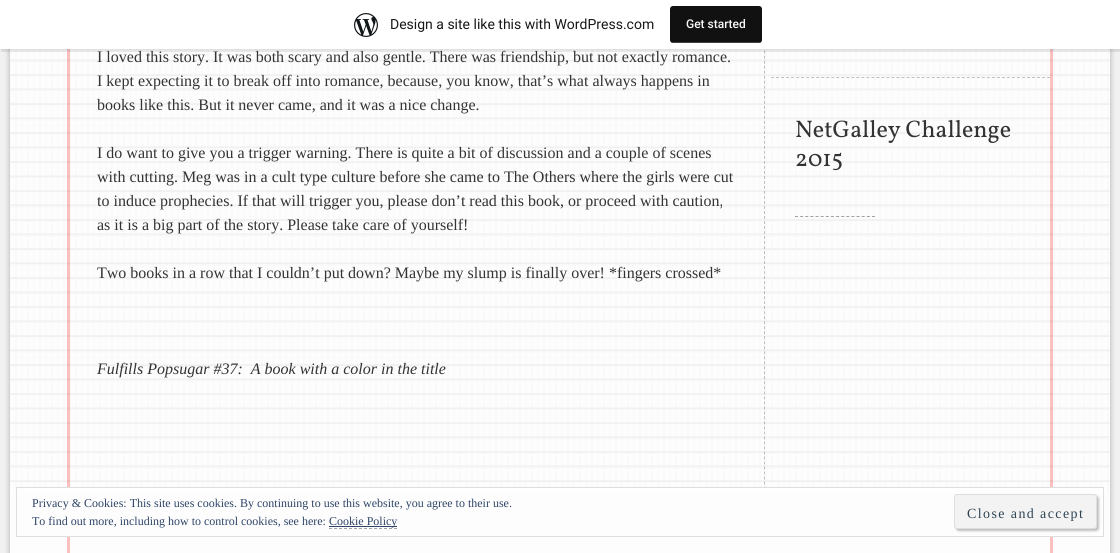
#include <cairo.h>
#include <math.h>
#include <stddef.h>


static void spaced_text(cairo_t *cr, double x, double y, const char *s, double letter, double word) {
    cairo_move_to(cr, x, y);
    while (*s) {
        char ch[5] = {0};
        int n = 0;
        do ch[n++] = *s++; while ((*s & 0xC0) == 0x80);
        cairo_show_text(cr, ch);
        cairo_rel_move_to(cr, letter + word * (*ch == ' '), 0);
    }
}

static void round_rect(cairo_t *cr, double x, double y, double w, double h, double r) {
    cairo_new_sub_path(cr);
    cairo_arc(cr, x + w - r, y + h - r, r, 0, M_PI / 2);
    cairo_arc(cr, x + r, y + h - r, r, M_PI / 2, M_PI);
    cairo_arc(cr, x + r, y + r, r, M_PI, 1.5 * M_PI);
    cairo_arc(cr, x + w - r, y + r, r, 1.5 * M_PI, 2 * M_PI);
    cairo_close_path(cr);
}

static void shadow(cairo_t *cr, double x, double y, double w, double h, double r, double blur, double alpha) {
    cairo_push_group_with_content(cr, CAIRO_CONTENT_ALPHA);
    cairo_set_operator(cr, CAIRO_OPERATOR_SOURCE);
    for (int i = 15; i >= -15 && fmin(w, h) + blur * i / 3 > 0; i -= 2) {
        double e = blur * i / 6;
        cairo_set_source_rgba(cr, 0, 0, 0, alpha * erfc((i - 1) / 8.5) / 2);
        round_rect(cr, x - e, y - e, w + 2 * e, h + 2 * e, fmax(0, fmin(r + e + blur * .6, fmin(w, h) / 2 + e)));
        cairo_fill(cr);
    }
    cairo_pattern_t *soft = cairo_pop_group(cr);
    cairo_mask(cr, soft);
    cairo_pattern_destroy(soft);
}

static void picture(cairo_t *cr, const char *path, double x, double y, double w, double h) {
    cairo_surface_t *image = cairo_image_surface_create_from_png(path);
    cairo_save(cr);
    cairo_set_source_surface(cr, image, x, y);
    cairo_rectangle(cr, x, y, w, h);
    cairo_fill(cr);
    cairo_restore(cr);
    cairo_surface_destroy(image);
}

int main(void) {
    cairo_surface_t *surface = cairo_image_surface_create(CAIRO_FORMAT_RGB24, 1120, 553);
    cairo_t *cr = cairo_create(surface);
    cairo_font_options_t *options = cairo_font_options_create();
    cairo_font_options_set_hint_metrics(options, CAIRO_HINT_METRICS_OFF);
    cairo_font_options_set_hint_style(options, CAIRO_HINT_STYLE_NONE);
    cairo_set_font_options(cr, options);
    cairo_set_miter_limit(cr, 4);
    cairo_set_source_rgb(cr, 0.945, 0.945, 0.945);
    cairo_paint(cr);
    cairo_set_source_rgb(cr, 0.8, 0.8, 0.8);
    shadow(cr, 8, -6, 1104, 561, 0, 2, 1);
    picture(cr, "img2.png", 10, 49, 1100, 444);
    cairo_set_source_rgba(cr, 0.957, 0.051, 0.051, 0.25);
    cairo_rectangle(cr, 1050, 49, 3, 444);
    cairo_fill(cr);
    cairo_rectangle(cr, 67, 49, 3, 444);
    cairo_fill(cr);
    cairo_new_path(cr);
    cairo_move_to(cr, 764.5, -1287);
    cairo_line_to(cr, 764.5, 493);
    cairo_set_source_rgba(cr, 0.392, 0.392, 0.392, 0.4);
    cairo_set_line_width(cr, 1);
    cairo_set_dash(cr, (double[]){3, 2.01}, 2, 0);
    cairo_stroke(cr);
    cairo_set_source_rgb(cr, 0, 0, 0);
    shadow(cr, 0, 1, 1120, 49, 0, 1, 0.05);
    cairo_set_source_rgba(cr, 0, 0, 0, 0.08);
    cairo_new_path(cr);
    cairo_move_to(cr, 1, 49);
    cairo_line_to(cr, 1, 52);
    cairo_line_to(cr, 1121, 52);
    cairo_line_to(cr, 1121, 3);
    cairo_line_to(cr, 1120, 3);
    cairo_line_to(cr, 1120, 49);
    cairo_close_path(cr);
    cairo_fill(cr);
    cairo_set_source_rgb(cr, 1, 1, 1);
    cairo_rectangle(cr, 0, 0, 1120, 49);
    cairo_fill(cr);
    picture(cr, "img1.png", 354, 13, 24, 24);
    cairo_select_font_face(cr, "Roboto", CAIRO_FONT_SLANT_NORMAL, CAIRO_FONT_WEIGHT_NORMAL);
    cairo_set_font_size(cr, 14);
    cairo_set_source_rgb(cr, 0.09, 0.09, 0.09);
    cairo_move_to(cr, 390, 29);
    cairo_show_text(cr, "Design a site like this with WordPress.com");
    cairo_set_source_rgb(cr, 0.067, 0.067, 0.067);
    round_rect(cr, 670, 6, 92, 37, 3);
    cairo_fill(cr);
    cairo_set_source_rgba(cr, 0.392, 0.392, 0.392, 0.6);
    cairo_rectangle(cr, 672, 42, 89, 1);
    cairo_fill(cr);
    cairo_select_font_face(cr, "Roboto Medium", CAIRO_FONT_SLANT_NORMAL, CAIRO_FONT_WEIGHT_NORMAL);
    cairo_set_font_size(cr, 12);
    cairo_set_source_rgb(cr, 0.965, 0.969, 0.969);
    cairo_move_to(cr, 686, 28);
    cairo_show_text(cr, "Get started");
    cairo_select_font_face(cr, "Liberation Serif", CAIRO_FONT_SLANT_NORMAL, CAIRO_FONT_WEIGHT_NORMAL);
    cairo_set_font_size(cr, 16);
    cairo_set_source_rgb(cr, 0.2, 0.2, 0.2);
    cairo_move_to(cr, 97, 62);
    cairo_show_text(cr, "I loved this story. It was both scary and also gentle. There was friendship, but not exactly romance.");
    cairo_move_to(cr, 97, 86);
    cairo_show_text(cr, "I kept expecting it to break off into romance, because, you know, that’s what always happens in");
    cairo_move_to(cr, 97, 110);
    cairo_show_text(cr, "books like this. But it never came, and it was a nice change.");
    cairo_move_to(cr, 97, 158);
    cairo_show_text(cr, "I do want to give you a trigger warning. There is quite a bit of discussion and a couple of scenes");
    cairo_move_to(cr, 97, 182);
    cairo_show_text(cr, "with cutting. Meg was in a cult type culture before she came to The Others where the girls were cut");
    cairo_move_to(cr, 97, 206);
    cairo_show_text(cr, "to induce prophecies. If that will trigger you, please don’t read this book, or proceed with caution,");
    cairo_move_to(cr, 97, 230);
    cairo_show_text(cr, "as it is a big part of the story. Please take care of yourself!");
    cairo_move_to(cr, 97, 278);
    cairo_show_text(cr, "Two books in a row that I couldn’t put down? Maybe my slump is finally over! *fingers crossed*");
    cairo_select_font_face(cr, "Liberation Serif", CAIRO_FONT_SLANT_ITALIC, CAIRO_FONT_WEIGHT_NORMAL);
    cairo_move_to(cr, 97, 374);
    cairo_show_text(cr, "Fulfills Popsugar #37:  A book with a color in the title");
    cairo_new_path(cr);
    cairo_move_to(cr, 771, 77.5);
    cairo_line_to(cr, 1050, 77.5);
    cairo_set_source_rgb(cr, 0.753, 0.753, 0.753);
    cairo_set_dash(cr, (double[]){3, 2.02}, 2, 0);
    cairo_stroke(cr);
    cairo_select_font_face(cr, "Vollkorn", CAIRO_FONT_SLANT_NORMAL, CAIRO_FONT_WEIGHT_NORMAL);
    cairo_set_font_size(cr, 24);
    cairo_set_source_rgb(cr, 0.2, 0.2, 0.2);
    cairo_move_to(cr, 795, 137);
    cairo_show_text(cr, "NetGalley Challenge");
    cairo_move_to(cr, 795, 166);
    cairo_show_text(cr, "2015");
    cairo_new_path(cr);
    cairo_move_to(cr, 795, 216.5);
    cairo_line_to(cr, 875, 216.5);
    cairo_set_source_rgb(cr, 0.631, 0.631, 0.631);
    cairo_set_dash(cr, (double[]){3, 2.13}, 2, 0);
    cairo_stroke(cr);
    cairo_set_source_rgb(cr, 0.992, 0.992, 0.992);
    cairo_rectangle(cr, 10, 493, 1100, 60);
    cairo_fill(cr);
    cairo_set_source_rgb(cr, 0.984, 0.757, 0.757);
    cairo_rectangle(cr, 1050, 537, 3, 16);
    cairo_fill(cr);
    cairo_rectangle(cr, 67, 537, 3, 16);
    cairo_fill(cr);
    cairo_set_source_rgb(cr, 1, 1, 1);
    cairo_rectangle(cr, 21, 488, 1082, 5);
    cairo_fill(cr);
    cairo_rectangle(cr, 16.5, 487.5, 1087, 49);
    cairo_set_source_rgb(cr, 0.871, 0.871, 0.871);
    cairo_set_dash(cr, NULL, 0, 0);
    cairo_stroke(cr);
    cairo_select_font_face(cr, "Liberation Serif", CAIRO_FONT_SLANT_NORMAL, CAIRO_FONT_WEIGHT_NORMAL);
    cairo_set_font_size(cr, 12);
    cairo_set_source_rgb(cr, 0.18, 0.267, 0.404);
    cairo_move_to(cr, 32, 507);
    cairo_show_text(cr, "Privacy & Cookies: This site uses cookies. By continuing to use this website, you agree to their use.");
    cairo_move_to(cr, 32, 525);
    cairo_show_text(cr, "To find out more, including how to control cookies, see here:");
    cairo_rectangle(cr, 329, 526, 68, 1);
    cairo_fill(cr);
    cairo_move_to(cr, 329, 525);
    cairo_show_text(cr, "Cookie Policy");
    cairo_new_path(cr);
    cairo_move_to(cr, 329, 528.5);
    cairo_line_to(cr, 397, 528.5);
    cairo_set_source_rgb(cr, 0.635, 0.635, 0.635);
    cairo_set_dash(cr, (double[]){3, 2}, 2, 0);
    cairo_stroke(cr);
    cairo_set_source_rgb(cr, 0.392, 0.392, 0.392);
    shadow(cr, 956, 496, 143, 35, 3, 1, 0.4);
    cairo_set_source_rgb(cr, 0.953, 0.953, 0.953);
    round_rect(cr, 954.5, 494.5, 142, 34, 2.5);
    cairo_fill_preserve(cr);
    cairo_set_source_rgb(cr, 0.871, 0.871, 0.871);
    cairo_set_dash(cr, NULL, 0, 0);
    cairo_stroke(cr);
    cairo_set_font_size(cr, 14);
    cairo_set_source_rgb(cr, 0.18, 0.267, 0.325);
    spaced_text(cr, 967, 518, "Close and accept", 1.4, 0);
    cairo_surface_write_to_png(surface, "page.png");
    cairo_font_options_destroy(options);
    cairo_destroy(cr);
    cairo_surface_destroy(surface);
    return 0;
}
